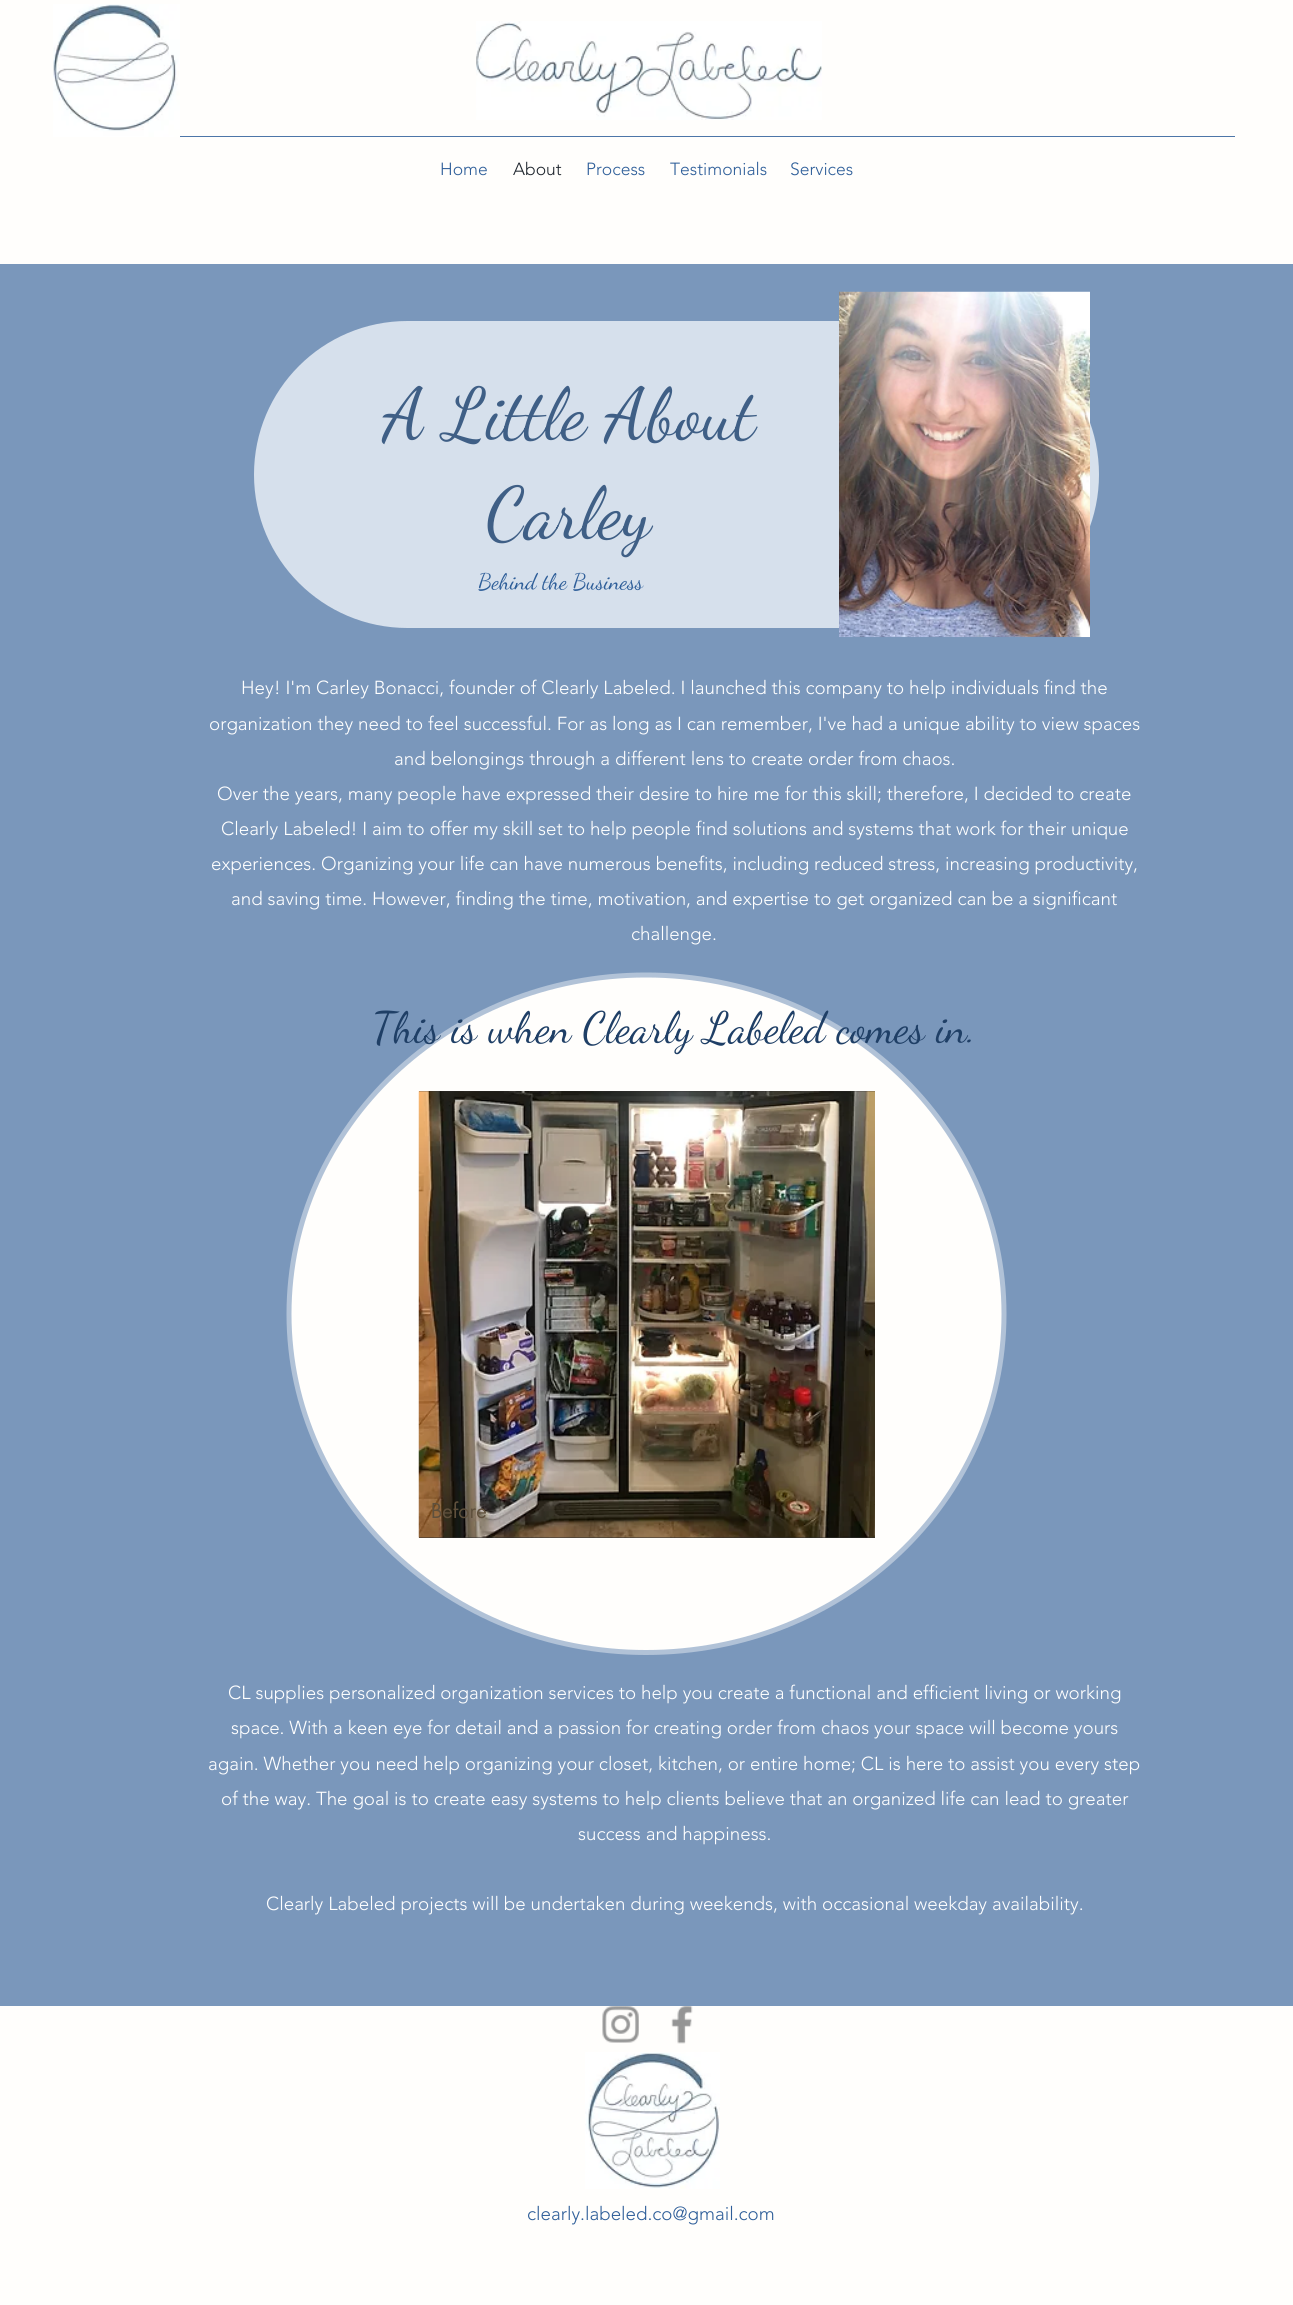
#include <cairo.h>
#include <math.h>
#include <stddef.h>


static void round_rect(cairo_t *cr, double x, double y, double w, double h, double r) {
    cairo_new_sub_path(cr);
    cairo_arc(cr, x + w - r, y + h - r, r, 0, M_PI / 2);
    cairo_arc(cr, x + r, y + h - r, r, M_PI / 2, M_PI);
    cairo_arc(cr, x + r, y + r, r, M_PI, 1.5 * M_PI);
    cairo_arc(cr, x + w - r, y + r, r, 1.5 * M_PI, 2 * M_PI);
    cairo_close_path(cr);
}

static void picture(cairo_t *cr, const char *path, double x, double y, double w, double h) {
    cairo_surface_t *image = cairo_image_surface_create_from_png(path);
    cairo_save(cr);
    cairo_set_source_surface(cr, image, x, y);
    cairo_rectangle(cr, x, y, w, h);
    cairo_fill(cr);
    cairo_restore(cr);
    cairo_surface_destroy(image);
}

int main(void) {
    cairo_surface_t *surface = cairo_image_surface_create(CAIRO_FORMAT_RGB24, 1293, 2305);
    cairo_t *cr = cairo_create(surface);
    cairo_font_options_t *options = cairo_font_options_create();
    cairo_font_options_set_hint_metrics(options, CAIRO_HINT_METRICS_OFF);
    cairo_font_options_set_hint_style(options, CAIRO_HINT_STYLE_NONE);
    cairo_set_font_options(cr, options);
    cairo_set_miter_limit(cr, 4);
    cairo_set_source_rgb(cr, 1, 0.996, 0.988);
    cairo_paint(cr);
    picture(cr, "img1.png", 53, 4, 127, 133);
    picture(cr, "img2.png", 476, 21, 346, 99);
    cairo_set_source_rgb(cr, 0.302, 0.463, 0.659);
    cairo_rectangle(cr, 180, 136, 1055, 1);
    cairo_fill(cr);
    cairo_select_font_face(cr, "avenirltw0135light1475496 Light", CAIRO_FONT_SLANT_NORMAL, CAIRO_FONT_WEIGHT_NORMAL);
    cairo_set_font_size(cr, 17.5);
    cairo_set_source_rgb(cr, 0.18, 0.369, 0.6);
    cairo_move_to(cr, 440, 175);
    cairo_show_text(cr, "Home");
    cairo_set_source_rgb(cr, 0.118, 0.145, 0.176);
    cairo_move_to(cr, 513, 175);
    cairo_show_text(cr, "About");
    cairo_set_source_rgb(cr, 0.18, 0.369, 0.6);
    cairo_move_to(cr, 586, 175);
    cairo_show_text(cr, "Process");
    cairo_move_to(cr, 670, 175);
    cairo_show_text(cr, "Testimonials");
    cairo_move_to(cr, 790, 175);
    cairo_show_text(cr, "Services");
    cairo_set_source_rgb(cr, 0.478, 0.592, 0.733);
    cairo_rectangle(cr, 0, 264, 1293, 1742);
    cairo_fill(cr);
    cairo_set_source_rgb(cr, 0.839, 0.878, 0.922);
    round_rect(cr, 254, 321, 845, 307, 153.5);
    cairo_fill(cr);
    cairo_select_font_face(cr, "Dancing Script", CAIRO_FONT_SLANT_NORMAL, CAIRO_FONT_WEIGHT_NORMAL);
    cairo_set_font_size(cr, 72.5);
    cairo_set_source_rgb(cr, 0.247, 0.373, 0.525);
    cairo_move_to(cr, 383, 438);
    cairo_show_text(cr, "A Little About");
    cairo_move_to(cr, 486, 537);
    cairo_show_text(cr, "Carley");
    cairo_set_font_size(cr, 22.5);
    cairo_set_source_rgb(cr, 0.18, 0.369, 0.6);
    cairo_move_to(cr, 478, 589);
    cairo_show_text(cr, "Behind the Business");
    picture(cr, "img3.png", 839, 291, 251, 347);
    cairo_select_font_face(cr, "avenirltw0135light1475496 Light", CAIRO_FONT_SLANT_NORMAL, CAIRO_FONT_WEIGHT_NORMAL);
    cairo_set_font_size(cr, 18.75);
    cairo_set_source_rgb(cr, 1, 1, 1);
    cairo_move_to(cr, 241, 694);
    cairo_show_text(cr, "Hey! I'm Carley Bonacci, founder of Clearly Labeled. I launched this company to help individuals find the");
    cairo_move_to(cr, 209, 730);
    cairo_show_text(cr, "organization they need to feel successful. For as long as I can remember, I've had a unique ability to view spaces");
    cairo_move_to(cr, 394, 765);
    cairo_show_text(cr, "and belongings through a different lens to create order from chaos.");
    cairo_move_to(cr, 217, 800);
    cairo_show_text(cr, "Over the years, many people have expressed their desire to hire me for this skill; therefore, I decided to create");
    cairo_move_to(cr, 221, 835);
    cairo_show_text(cr, "Clearly Labeled! I aim to offer my skill set to help people find solutions and systems that work for their unique");
    cairo_move_to(cr, 211, 870);
    cairo_show_text(cr, "experiences. Organizing your life can have numerous benefits, including reduced stress, increasing productivity,");
    cairo_move_to(cr, 231, 905);
    cairo_show_text(cr, "and saving time. However, finding the time, motivation, and expertise to get organized can be a significant");
    cairo_move_to(cr, 631, 940);
    cairo_show_text(cr, "challenge.");
    cairo_set_source_rgb(cr, 1, 0.996, 0.988);
    cairo_new_path(cr);
    cairo_move_to(cr, 1004, 1314);
    cairo_curve_to(cr, 1004, 1501, 844, 1652, 646, 1652);
    cairo_curve_to(cr, 449, 1652, 289, 1501, 289, 1314);
    cairo_curve_to(cr, 289, 1127, 449, 975, 646, 975);
    cairo_curve_to(cr, 844, 975, 1004, 1127, 1004, 1314);
    cairo_close_path(cr);
    cairo_fill(cr);
    cairo_new_path(cr);
    cairo_move_to(cr, 1004, 1314);
    cairo_curve_to(cr, 1004, 1501, 843.5, 1652.5, 646, 1652.5);
    cairo_curve_to(cr, 449, 1652.5, 289, 1501, 289, 1314);
    cairo_curve_to(cr, 289, 1126.5, 449, 975, 646, 975);
    cairo_curve_to(cr, 843.5, 975, 1004, 1126.5, 1004, 1314);
    cairo_close_path(cr);
    cairo_set_source_rgb(cr, 0.694, 0.761, 0.843);
    cairo_set_line_width(cr, 5);
    cairo_stroke(cr);
    cairo_select_font_face(cr, "Dancing Script", CAIRO_FONT_SLANT_NORMAL, CAIRO_FONT_WEIGHT_NORMAL);
    cairo_set_font_size(cr, 43.75);
    cairo_set_source_rgb(cr, 0.122, 0.247, 0.4);
    cairo_move_to(cr, 372, 1042);
    cairo_show_text(cr, "This is when Clearly Labeled comes in.");
    cairo_select_font_face(cr, "avenirltw0135light1475496 Light", CAIRO_FONT_SLANT_NORMAL, CAIRO_FONT_WEIGHT_NORMAL);
    cairo_set_font_size(cr, 18.75);
    cairo_set_source_rgb(cr, 1, 1, 1);
    cairo_move_to(cr, 228, 1699);
    cairo_show_text(cr, "CL supplies personalized organization services to help you create a functional and efficient living or working");
    cairo_move_to(cr, 231, 1734);
    cairo_show_text(cr, "space. With a keen eye for detail and a passion for creating order from chaos your space will become yours");
    cairo_move_to(cr, 208, 1770);
    cairo_show_text(cr, "again. Whether you need help organizing your closet, kitchen, or entire home; CL is here to assist you every step");
    cairo_move_to(cr, 221, 1805);
    cairo_show_text(cr, "of the way. The goal is to create easy systems to help clients believe that an organized life can lead to greater");
    cairo_move_to(cr, 578, 1840);
    cairo_show_text(cr, "success and happiness.");
    cairo_move_to(cr, 266, 1910);
    cairo_show_text(cr, "Clearly Labeled projects will be undertaken during weekends, with occasional weekday availability.");
    cairo_set_source_rgb(cr, 0.184, 0.18, 0.18);
    cairo_rectangle(cr, 419, 1091, 456, 447);
    cairo_fill(cr);
    picture(cr, "img4.png", 418, 1091, 457, 447);
    cairo_select_font_face(cr, "futura", CAIRO_FONT_SLANT_NORMAL, CAIRO_FONT_WEIGHT_NORMAL);
    cairo_set_font_size(cr, 20);
    cairo_set_source_rgb(cr, 0.373, 0.314, 0.235);
    cairo_move_to(cr, 431, 1518);
    cairo_show_text(cr, "Before");
    picture(cr, "img5.png", 602, 2006, 37, 37);
    picture(cr, "img6.png", 671, 2006, 22, 38);
    picture(cr, "img7.png", 585, 2052, 135, 137);
    cairo_select_font_face(cr, "avenirltw0135light1475496 Light", CAIRO_FONT_SLANT_NORMAL, CAIRO_FONT_WEIGHT_NORMAL);
    cairo_set_font_size(cr, 18.75);
    cairo_set_source_rgb(cr, 0.18, 0.369, 0.6);
    cairo_move_to(cr, 527, 2220);
    cairo_show_text(cr, "clearly.labeled.co@gmail.com");
    cairo_surface_write_to_png(surface, "page.png");
    cairo_font_options_destroy(options);
    cairo_destroy(cr);
    cairo_surface_destroy(surface);
    return 0;
}
